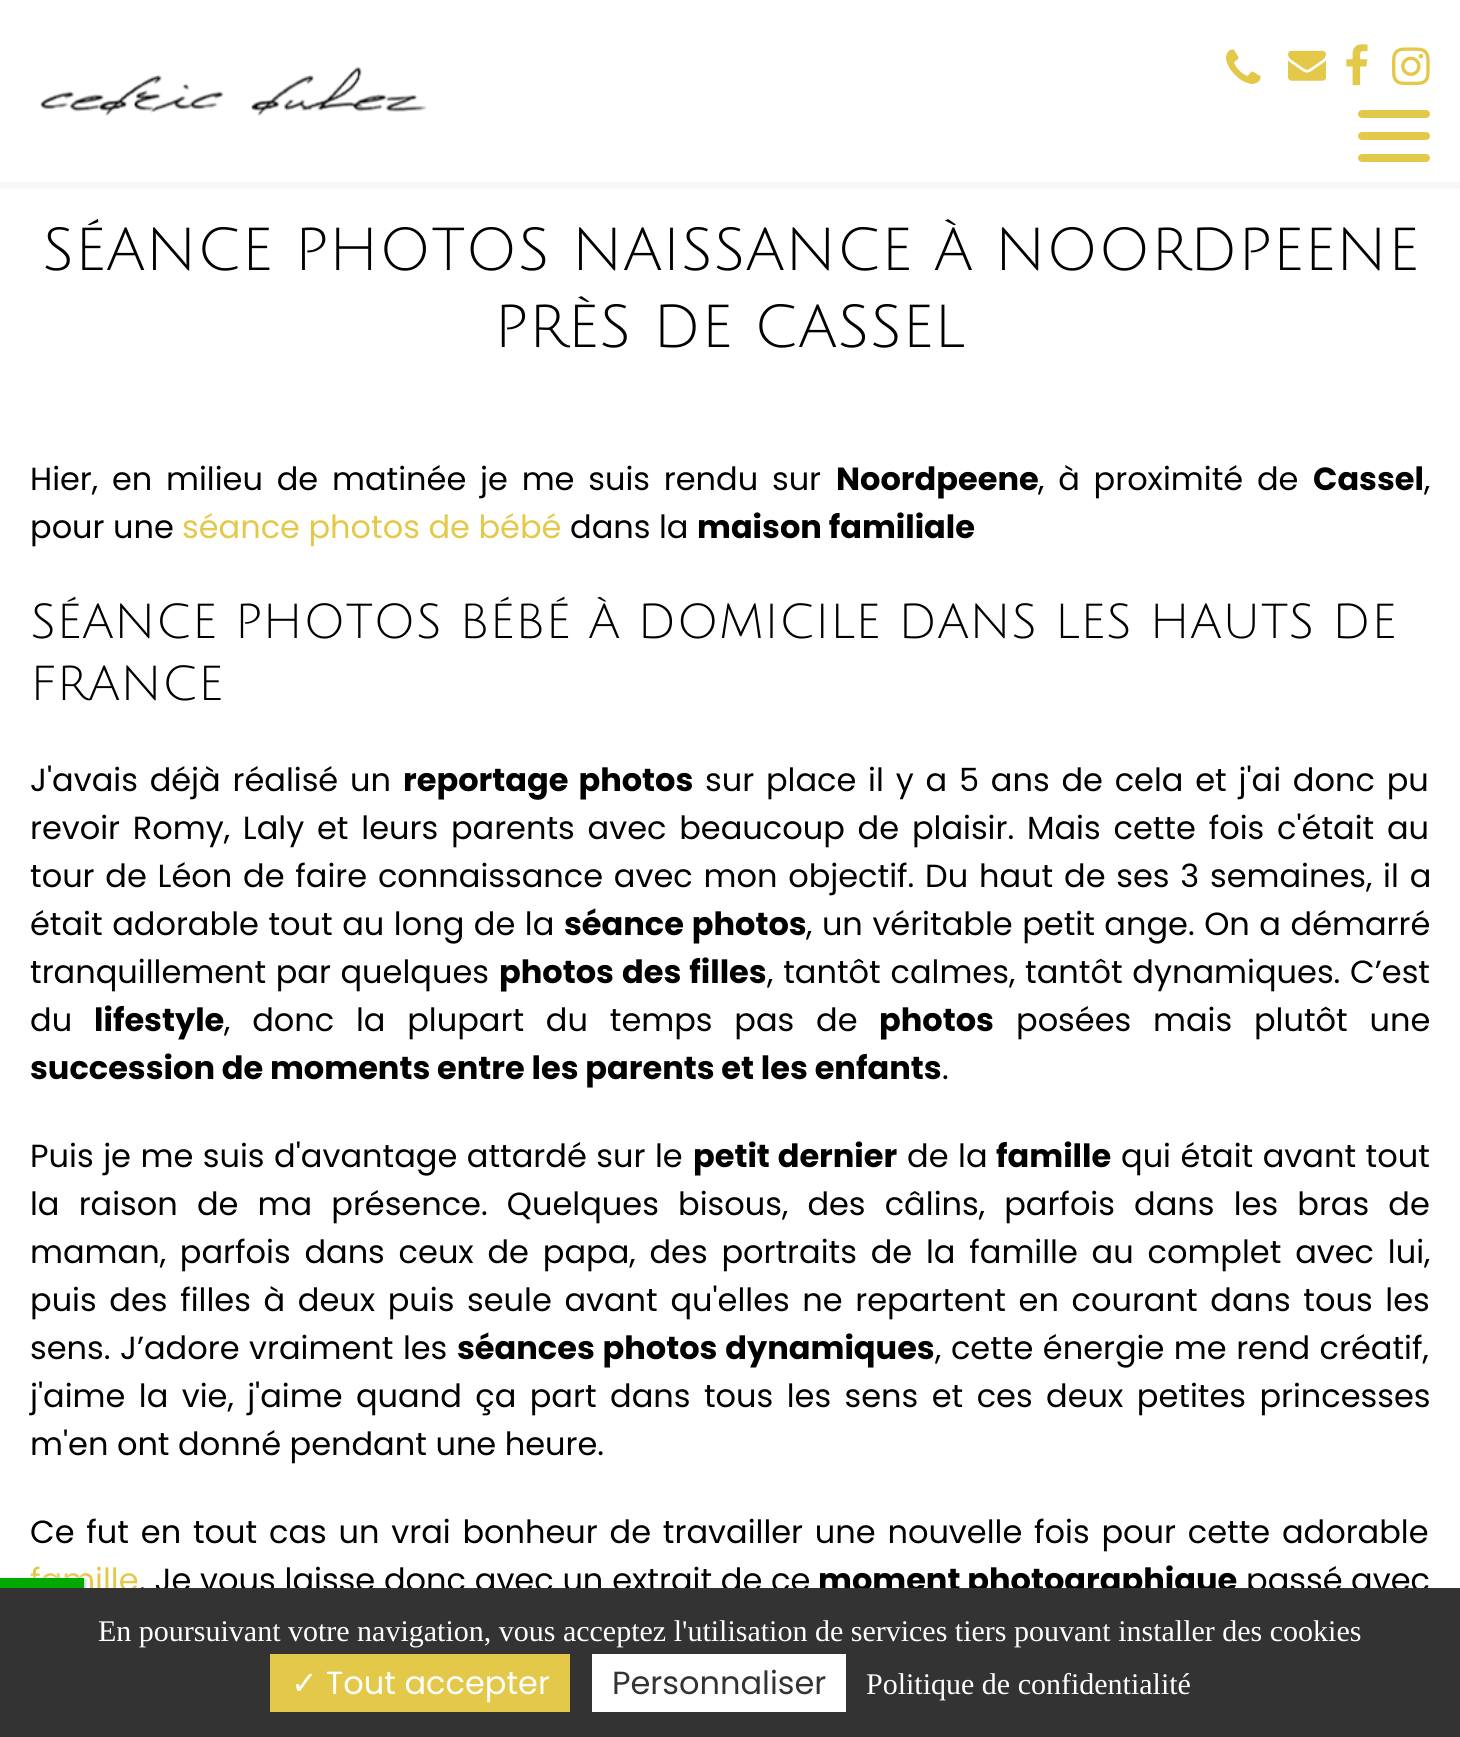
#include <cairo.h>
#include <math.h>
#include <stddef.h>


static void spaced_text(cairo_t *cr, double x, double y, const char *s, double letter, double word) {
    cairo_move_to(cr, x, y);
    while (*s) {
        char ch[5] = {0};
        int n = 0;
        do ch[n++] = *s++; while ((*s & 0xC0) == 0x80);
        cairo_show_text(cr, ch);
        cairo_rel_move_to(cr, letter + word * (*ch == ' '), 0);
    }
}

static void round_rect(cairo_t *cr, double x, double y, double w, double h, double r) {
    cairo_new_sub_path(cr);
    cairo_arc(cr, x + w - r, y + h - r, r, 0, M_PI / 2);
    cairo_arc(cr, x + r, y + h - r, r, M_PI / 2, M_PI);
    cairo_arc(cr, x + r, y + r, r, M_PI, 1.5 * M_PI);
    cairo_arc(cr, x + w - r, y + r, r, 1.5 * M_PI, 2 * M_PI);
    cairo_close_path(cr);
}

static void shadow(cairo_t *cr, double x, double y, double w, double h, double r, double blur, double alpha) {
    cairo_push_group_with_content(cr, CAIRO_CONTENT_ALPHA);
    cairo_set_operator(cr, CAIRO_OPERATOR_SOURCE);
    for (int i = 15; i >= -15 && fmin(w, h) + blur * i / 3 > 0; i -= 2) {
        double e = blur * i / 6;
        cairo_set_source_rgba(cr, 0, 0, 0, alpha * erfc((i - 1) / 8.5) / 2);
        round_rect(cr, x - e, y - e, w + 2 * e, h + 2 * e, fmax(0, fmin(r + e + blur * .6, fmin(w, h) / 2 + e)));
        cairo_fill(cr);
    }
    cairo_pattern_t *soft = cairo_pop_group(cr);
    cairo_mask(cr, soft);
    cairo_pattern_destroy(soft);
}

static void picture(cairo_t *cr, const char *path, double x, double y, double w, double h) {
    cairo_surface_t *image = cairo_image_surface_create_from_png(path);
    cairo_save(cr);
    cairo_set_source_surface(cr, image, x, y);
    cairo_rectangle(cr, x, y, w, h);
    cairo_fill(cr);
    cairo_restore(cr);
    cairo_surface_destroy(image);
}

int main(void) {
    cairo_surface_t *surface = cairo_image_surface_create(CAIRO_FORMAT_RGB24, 1460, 1737);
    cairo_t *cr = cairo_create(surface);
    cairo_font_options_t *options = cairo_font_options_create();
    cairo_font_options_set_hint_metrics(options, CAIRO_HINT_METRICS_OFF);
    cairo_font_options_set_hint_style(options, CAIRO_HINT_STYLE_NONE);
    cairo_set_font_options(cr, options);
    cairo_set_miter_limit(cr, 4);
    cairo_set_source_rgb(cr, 1, 1, 1);
    cairo_paint(cr);
    cairo_save(cr);
    cairo_rectangle(cr, 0, 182, 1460, 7);
    cairo_clip(cr);
    cairo_set_source_rgb(cr, 0, 0, 0);
    shadow(cr, 0, 26, 1460, 162, 0, 5, 0.05);
    cairo_restore(cr);
    picture(cr, "img1.png", 40, 66, 386, 50);
    picture(cr, "img2.png", 1226, 49, 35, 35);
    picture(cr, "img3.png", 1288, 50, 38, 31);
    picture(cr, "img4.png", 1346, 44, 22, 42);
    picture(cr, "img5.png", 1392, 47, 38, 39);
    cairo_set_source_rgb(cr, 0.894, 0.784, 0.286);
    round_rect(cr, 1358, 110, 72, 8, 4);
    cairo_fill(cr);
    round_rect(cr, 1358, 132, 72, 8, 4);
    cairo_fill(cr);
    round_rect(cr, 1358, 154, 72, 8, 4);
    cairo_fill(cr);
    cairo_select_font_face(cr, "Julius Sans One", CAIRO_FONT_SLANT_NORMAL, CAIRO_FONT_WEIGHT_NORMAL);
    cairo_set_font_size(cr, 59.2);
    cairo_set_source_rgb(cr, 0, 0, 0);
    cairo_move_to(cr, 42, 270);
    cairo_show_text(cr, "SÉANCE PHOTOS NAISSANCE À NOORDPEENE");
    cairo_move_to(cr, 494, 347);
    cairo_show_text(cr, "PRÈS DE CASSEL");
    cairo_select_font_face(cr, "Poppins", CAIRO_FONT_SLANT_NORMAL, CAIRO_FONT_WEIGHT_NORMAL);
    cairo_set_font_size(cr, 32);
    spaced_text(cr, 30, 490, "Hier, en milieu de matinée je me suis rendu sur", 0, 5.25);
    cairo_select_font_face(cr, "Poppins", CAIRO_FONT_SLANT_NORMAL, CAIRO_FONT_WEIGHT_BOLD);
    cairo_move_to(cr, 836, 490);
    cairo_show_text(cr, "Noordpeene");
    cairo_select_font_face(cr, "Poppins", CAIRO_FONT_SLANT_NORMAL, CAIRO_FONT_WEIGHT_NORMAL);
    spaced_text(cr, 1038, 490, ", à proximité de", 0, 5.25);
    cairo_select_font_face(cr, "Poppins", CAIRO_FONT_SLANT_NORMAL, CAIRO_FONT_WEIGHT_BOLD);
    cairo_move_to(cr, 1313, 490);
    cairo_show_text(cr, "Cassel");
    cairo_select_font_face(cr, "Poppins", CAIRO_FONT_SLANT_NORMAL, CAIRO_FONT_WEIGHT_NORMAL);
    cairo_move_to(cr, 1424, 490);
    cairo_show_text(cr, ",");
    cairo_move_to(cr, 30, 538);
    cairo_show_text(cr, "pour une");
    cairo_set_source_rgb(cr, 0.894, 0.784, 0.286);
    cairo_move_to(cr, 182, 538);
    cairo_show_text(cr, "séance photos de bébé");
    cairo_set_source_rgb(cr, 0, 0, 0);
    cairo_move_to(cr, 570, 538);
    cairo_show_text(cr, "dans la");
    cairo_select_font_face(cr, "Poppins", CAIRO_FONT_SLANT_NORMAL, CAIRO_FONT_WEIGHT_BOLD);
    cairo_move_to(cr, 697, 538);
    cairo_show_text(cr, "maison familiale");
    cairo_select_font_face(cr, "Julius Sans One", CAIRO_FONT_SLANT_NORMAL, CAIRO_FONT_WEIGHT_NORMAL);
    cairo_set_font_size(cr, 48);
    cairo_move_to(cr, 30, 638);
    cairo_show_text(cr, "SÉANCE PHOTOS BÉBÉ À DOMICILE DANS LES HAUTS DE");
    cairo_move_to(cr, 30, 700);
    cairo_show_text(cr, "FRANCE");
    cairo_select_font_face(cr, "Poppins", CAIRO_FONT_SLANT_NORMAL, CAIRO_FONT_WEIGHT_NORMAL);
    cairo_set_font_size(cr, 32);
    spaced_text(cr, 30, 791, "J'avais déjà réalisé un", 0, 3.25);
    cairo_select_font_face(cr, "Poppins", CAIRO_FONT_SLANT_NORMAL, CAIRO_FONT_WEIGHT_BOLD);
    spaced_text(cr, 403, 791, "reportage photos", 0, 3.25);
    cairo_select_font_face(cr, "Poppins", CAIRO_FONT_SLANT_NORMAL, CAIRO_FONT_WEIGHT_NORMAL);
    spaced_text(cr, 705, 791, "sur place il y a 5 ans de cela et j'ai donc pu", 0, 3.25);
    spaced_text(cr, 30, 839, "revoir Romy, Laly et leurs parents avec beaucoup de plaisir. Mais cette fois c'était au", 0, 4.25);
    spaced_text(cr, 30, 887, "tour de Léon de faire connaissance avec mon objectif. Du haut de ses 3 semaines, il a", 0, 2.25);
    spaced_text(cr, 30, 935, "était adorable tout au long de la", 0, 1);
    cairo_select_font_face(cr, "Poppins", CAIRO_FONT_SLANT_NORMAL, CAIRO_FONT_WEIGHT_BOLD);
    spaced_text(cr, 564, 935, "séance photos", 0, 1);
    cairo_select_font_face(cr, "Poppins", CAIRO_FONT_SLANT_NORMAL, CAIRO_FONT_WEIGHT_NORMAL);
    spaced_text(cr, 806, 935, ", un véritable petit ange. On a démarré", 0, 1);
    spaced_text(cr, 30, 983, "tranquillement par quelques", 0, 1);
    cairo_select_font_face(cr, "Poppins", CAIRO_FONT_SLANT_NORMAL, CAIRO_FONT_WEIGHT_BOLD);
    spaced_text(cr, 499, 983, "photos des filles", 0, 1.25);
    cairo_select_font_face(cr, "Poppins", CAIRO_FONT_SLANT_NORMAL, CAIRO_FONT_WEIGHT_NORMAL);
    spaced_text(cr, 767, 983, ", tantôt calmes, tantôt dynamiques. C’est", 0, 1.25);
    cairo_move_to(cr, 30, 1031);
    cairo_show_text(cr, "du");
    cairo_select_font_face(cr, "Poppins", CAIRO_FONT_SLANT_NORMAL, CAIRO_FONT_WEIGHT_BOLD);
    cairo_move_to(cr, 94, 1031);
    cairo_show_text(cr, "lifestyle");
    cairo_select_font_face(cr, "Poppins", CAIRO_FONT_SLANT_NORMAL, CAIRO_FONT_WEIGHT_NORMAL);
    spaced_text(cr, 224, 1031, ", donc la plupart du temps pas de", 0, 13.25);
    cairo_select_font_face(cr, "Poppins", CAIRO_FONT_SLANT_NORMAL, CAIRO_FONT_WEIGHT_BOLD);
    cairo_move_to(cr, 879, 1031);
    cairo_show_text(cr, "photos");
    cairo_select_font_face(cr, "Poppins", CAIRO_FONT_SLANT_NORMAL, CAIRO_FONT_WEIGHT_NORMAL);
    spaced_text(cr, 1016, 1031, "posées mais plutôt une", 0, 13.25);
    cairo_select_font_face(cr, "Poppins", CAIRO_FONT_SLANT_NORMAL, CAIRO_FONT_WEIGHT_BOLD);
    cairo_move_to(cr, 30, 1079);
    cairo_show_text(cr, "succession de moments entre les parents et les enfants");
    cairo_select_font_face(cr, "Poppins", CAIRO_FONT_SLANT_NORMAL, CAIRO_FONT_WEIGHT_NORMAL);
    cairo_move_to(cr, 942, 1079);
    cairo_show_text(cr, ".");
    spaced_text(cr, 30, 1167, "Puis je me suis d'avantage attardé sur le", 0, 1);
    cairo_select_font_face(cr, "Poppins", CAIRO_FONT_SLANT_NORMAL, CAIRO_FONT_WEIGHT_BOLD);
    spaced_text(cr, 693, 1167, "petit dernier", 0, 1);
    cairo_select_font_face(cr, "Poppins", CAIRO_FONT_SLANT_NORMAL, CAIRO_FONT_WEIGHT_NORMAL);
    spaced_text(cr, 907, 1167, "de la", 0, 1);
    cairo_select_font_face(cr, "Poppins", CAIRO_FONT_SLANT_NORMAL, CAIRO_FONT_WEIGHT_BOLD);
    cairo_move_to(cr, 996, 1167);
    cairo_show_text(cr, "famille");
    cairo_select_font_face(cr, "Poppins", CAIRO_FONT_SLANT_NORMAL, CAIRO_FONT_WEIGHT_NORMAL);
    spaced_text(cr, 1121, 1167, "qui était avant tout", 0, 1);
    spaced_text(cr, 30, 1215, "la raison de ma présence. Quelques bisous, des câlins, parfois dans les bras de", 0, 10.6);
    spaced_text(cr, 30, 1263, "maman, parfois dans ceux de papa, des portraits de la famille au complet avec lui,", 0, 5.25);
    spaced_text(cr, 30, 1311, "puis des filles à deux puis seule avant qu'elles ne repartent en courant dans tous les", 0, 4.1);
    spaced_text(cr, 30, 1359, "sens. J’adore vraiment les", 0, 1);
    cairo_select_font_face(cr, "Poppins", CAIRO_FONT_SLANT_NORMAL, CAIRO_FONT_WEIGHT_BOLD);
    spaced_text(cr, 457, 1359, "séances photos dynamiques", 0, 1);
    cairo_select_font_face(cr, "Poppins", CAIRO_FONT_SLANT_NORMAL, CAIRO_FONT_WEIGHT_NORMAL);
    spaced_text(cr, 935, 1359, ", cette énergie me rend créatif,", 0, 1);
    spaced_text(cr, 30, 1407, "j'aime la vie, j'aime quand ça part dans tous les sens et ces deux petites princesses", 0, 4.9);
    cairo_move_to(cr, 30, 1455);
    cairo_show_text(cr, "m'en ont donné pendant une heure.");
    spaced_text(cr, 30, 1543, "Ce fut en tout cas un vrai bonheur de travailler une nouvelle fois pour cette adorable", 0, 3.25);
    cairo_set_source_rgb(cr, 0.894, 0.784, 0.286);
    cairo_move_to(cr, 30, 1591);
    cairo_show_text(cr, "famille");
    cairo_set_source_rgb(cr, 0, 0, 0);
    spaced_text(cr, 139, 1591, ". Je vous laisse donc avec un extrait de ce", 0, 0.25);
    cairo_select_font_face(cr, "Poppins", CAIRO_FONT_SLANT_NORMAL, CAIRO_FONT_WEIGHT_BOLD);
    cairo_move_to(cr, 818, 1591);
    cairo_show_text(cr, "moment photographique");
    cairo_select_font_face(cr, "Poppins", CAIRO_FONT_SLANT_NORMAL, CAIRO_FONT_WEIGHT_NORMAL);
    cairo_move_to(cr, 1246, 1591);
    cairo_show_text(cr, "passé avec");
    cairo_set_source_rgb(cr, 0.333, 0.333, 0.333);
    shadow(cr, 0, 1580, 84, 10, 0, 2, 1);
    cairo_set_source_rgb(cr, 1, 1, 1);
    shadow(cr, 0, 1578, 84, 10, 0, 2, 1);
    cairo_set_source_rgb(cr, 0, 0.667, 0);
    cairo_rectangle(cr, 0, 1578, 84, 10);
    cairo_fill(cr);
    cairo_set_source_rgb(cr, 0.2, 0.2, 0.2);
    cairo_rectangle(cr, 0, 1588, 1460, 149);
    cairo_fill(cr);
    cairo_select_font_face(cr, "Liberation Serif", CAIRO_FONT_SLANT_NORMAL, CAIRO_FONT_WEIGHT_NORMAL);
    cairo_set_font_size(cr, 30);
    cairo_set_source_rgb(cr, 1, 1, 1);
    cairo_move_to(cr, 98, 1641);
    cairo_show_text(cr, "En poursuivant votre navigation, vous acceptez l'utilisation de services tiers pouvant installer des cookies");
    cairo_set_source_rgb(cr, 0.894, 0.784, 0.286);
    cairo_rectangle(cr, 270, 1654, 300, 58);
    cairo_fill(cr);
    cairo_select_font_face(cr, "DejaVu Sans", CAIRO_FONT_SLANT_NORMAL, CAIRO_FONT_WEIGHT_NORMAL);
    cairo_set_font_size(cr, 32);
    cairo_set_source_rgb(cr, 1, 1, 1);
    cairo_move_to(cr, 291, 1694);
    cairo_show_text(cr, "✓");
    cairo_select_font_face(cr, "Poppins", CAIRO_FONT_SLANT_NORMAL, CAIRO_FONT_WEIGHT_NORMAL);
    cairo_move_to(cr, 326, 1694);
    cairo_show_text(cr, "Tout accepter");
    cairo_rectangle(cr, 592, 1654, 254, 58);
    cairo_fill(cr);
    cairo_set_source_rgb(cr, 0.2, 0.2, 0.2);
    cairo_move_to(cr, 612, 1694);
    cairo_show_text(cr, "Personnaliser");
    cairo_select_font_face(cr, "Liberation Serif", CAIRO_FONT_SLANT_NORMAL, CAIRO_FONT_WEIGHT_NORMAL);
    cairo_set_font_size(cr, 30);
    cairo_set_source_rgb(cr, 1, 1, 1);
    cairo_move_to(cr, 866, 1694);
    cairo_show_text(cr, "Politique de confidentialité");
    cairo_surface_write_to_png(surface, "page.png");
    cairo_font_options_destroy(options);
    cairo_destroy(cr);
    cairo_surface_destroy(surface);
    return 0;
}
